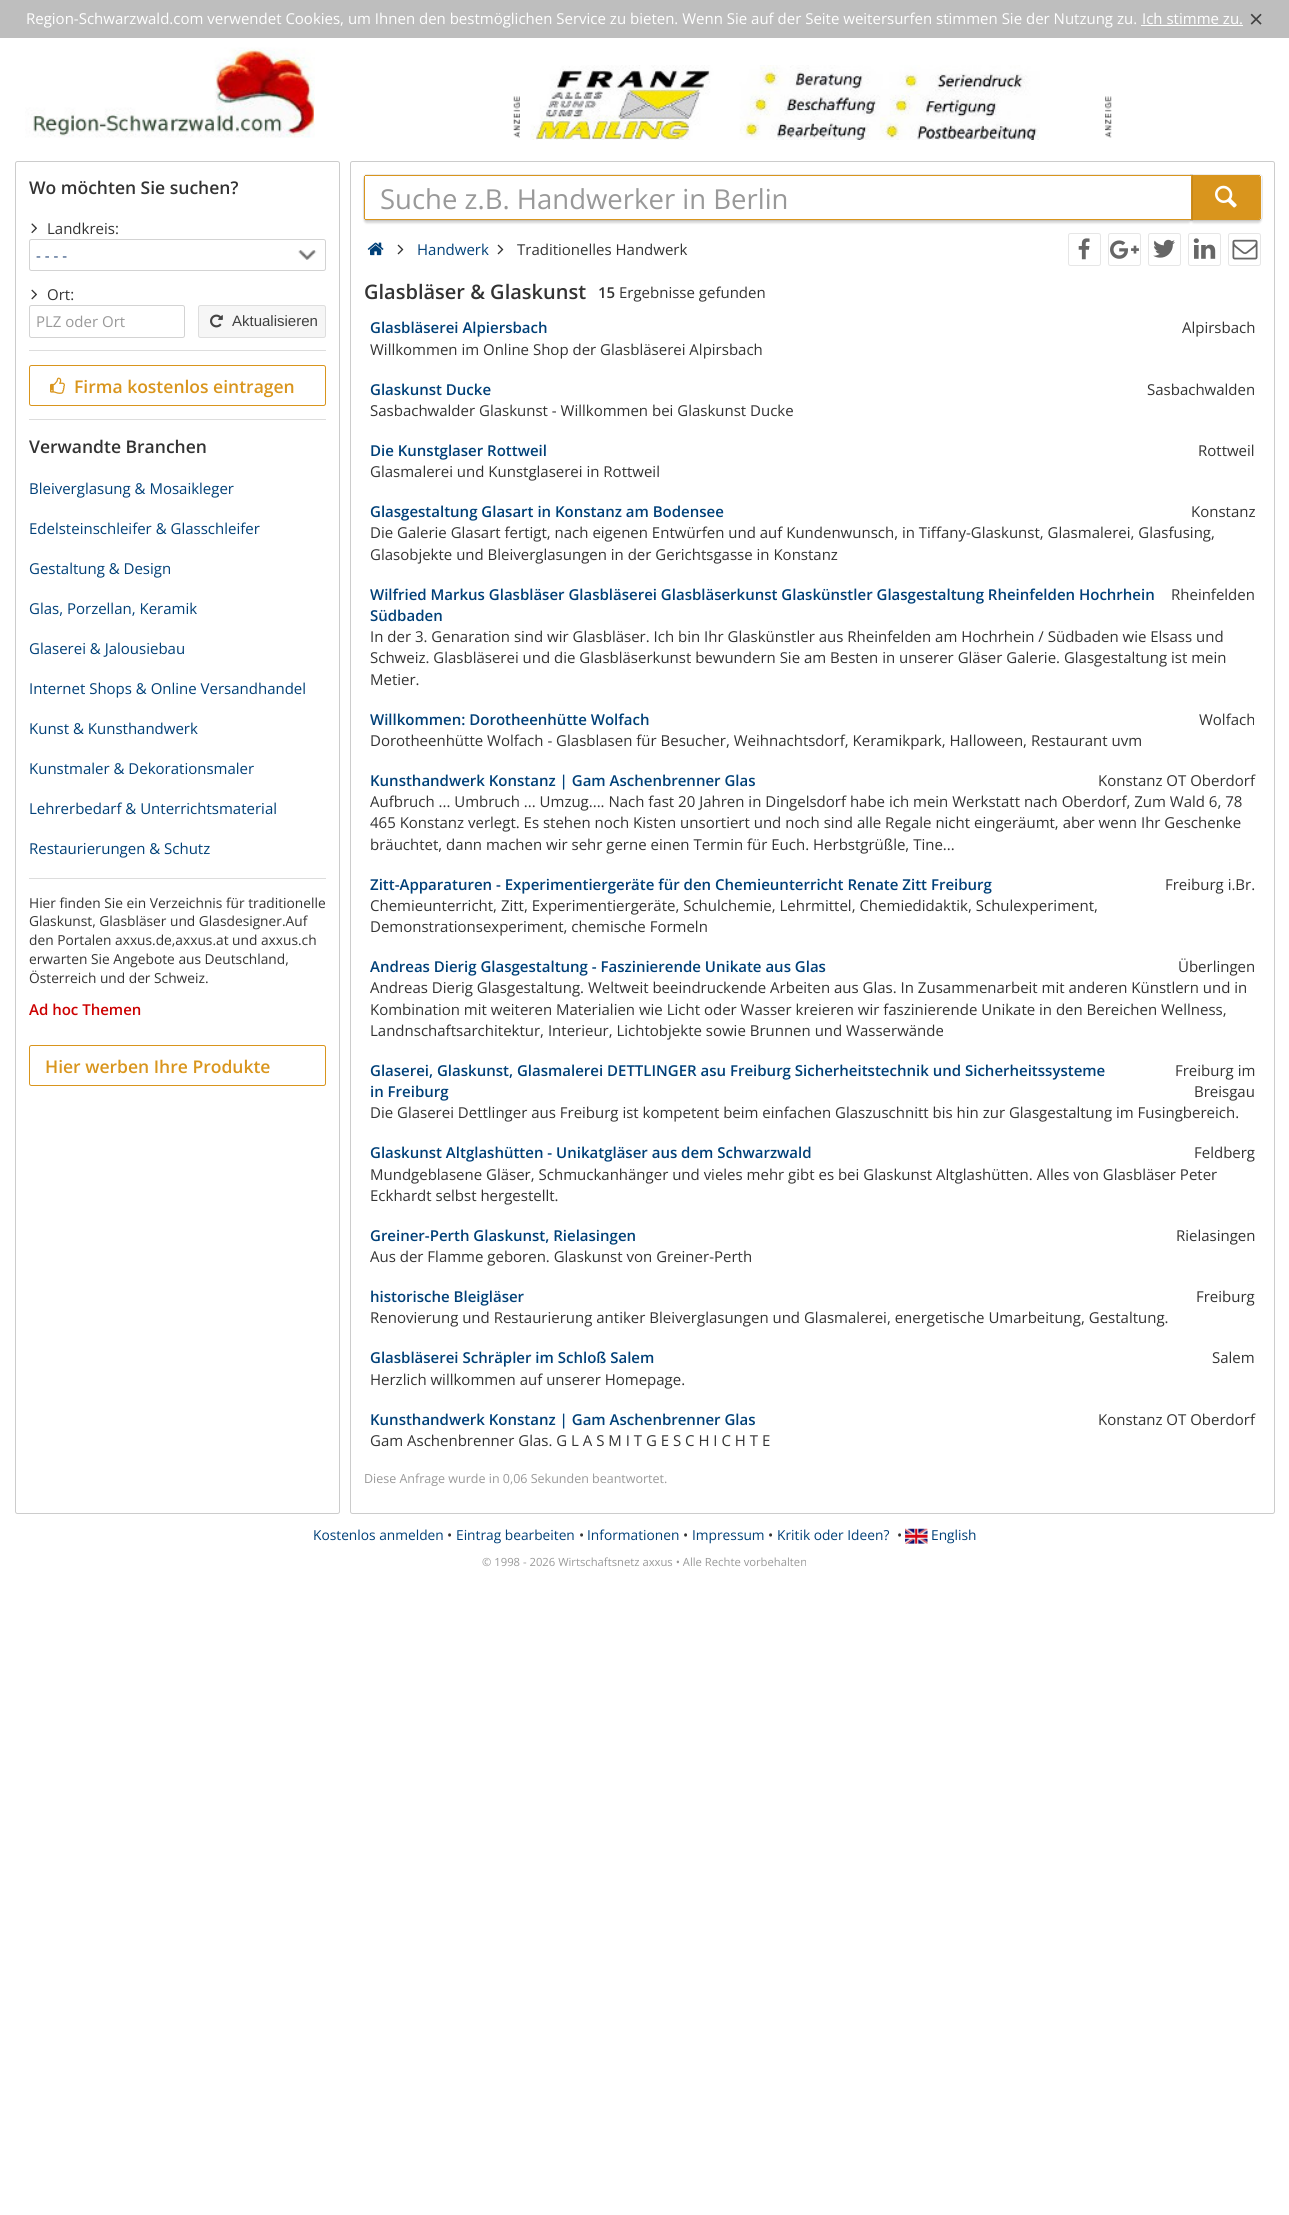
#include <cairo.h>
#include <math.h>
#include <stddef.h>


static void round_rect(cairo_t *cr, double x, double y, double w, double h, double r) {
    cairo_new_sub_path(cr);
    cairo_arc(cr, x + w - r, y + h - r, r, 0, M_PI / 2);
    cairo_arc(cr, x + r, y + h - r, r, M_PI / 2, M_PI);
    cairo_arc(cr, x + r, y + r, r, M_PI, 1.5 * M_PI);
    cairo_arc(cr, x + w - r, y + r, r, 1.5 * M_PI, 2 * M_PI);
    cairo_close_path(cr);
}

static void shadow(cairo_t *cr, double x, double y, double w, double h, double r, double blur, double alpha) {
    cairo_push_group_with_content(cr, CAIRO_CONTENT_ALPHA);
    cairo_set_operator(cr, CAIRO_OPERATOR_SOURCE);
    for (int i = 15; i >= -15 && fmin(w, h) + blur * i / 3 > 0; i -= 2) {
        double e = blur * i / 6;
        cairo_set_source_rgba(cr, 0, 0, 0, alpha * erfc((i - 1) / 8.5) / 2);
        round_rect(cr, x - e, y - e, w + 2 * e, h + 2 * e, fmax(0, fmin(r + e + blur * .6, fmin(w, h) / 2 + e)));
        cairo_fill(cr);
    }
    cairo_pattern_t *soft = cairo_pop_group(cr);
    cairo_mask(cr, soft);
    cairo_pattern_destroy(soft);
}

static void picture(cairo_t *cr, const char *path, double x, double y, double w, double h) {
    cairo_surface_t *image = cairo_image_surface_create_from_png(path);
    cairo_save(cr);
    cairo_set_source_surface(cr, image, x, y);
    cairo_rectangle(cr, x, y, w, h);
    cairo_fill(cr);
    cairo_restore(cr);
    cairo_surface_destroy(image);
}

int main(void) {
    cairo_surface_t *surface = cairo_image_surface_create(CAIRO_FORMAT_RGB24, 1289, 2215);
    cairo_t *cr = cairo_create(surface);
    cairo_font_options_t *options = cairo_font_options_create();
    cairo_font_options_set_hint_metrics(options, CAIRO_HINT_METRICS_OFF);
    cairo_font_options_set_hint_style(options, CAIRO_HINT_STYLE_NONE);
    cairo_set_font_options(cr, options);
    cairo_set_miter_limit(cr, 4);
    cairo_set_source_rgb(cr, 1, 1, 1);
    cairo_paint(cr);
    cairo_set_source_rgb(cr, 0.745, 0.745, 0.745);
    cairo_rectangle(cr, 0, 0, 1289, 38);
    cairo_fill(cr);
    cairo_select_font_face(cr, "Open Sans", CAIRO_FONT_SLANT_NORMAL, CAIRO_FONT_WEIGHT_NORMAL);
    cairo_set_font_size(cr, 15);
    cairo_set_source_rgb(cr, 1, 1, 1);
    cairo_move_to(cr, 26, 24);
    cairo_show_text(cr, "Region-Schwarzwald.com verwendet Cookies, um Ihnen den bestmöglichen Service zu bieten. Wenn Sie auf der Seite weitersurfen stimmen Sie der Nutzung zu.");
    cairo_move_to(cr, 1142, 24);
    cairo_show_text(cr, "Ich stimme zu.");
    cairo_rectangle(cr, 1141, 25, 102, 1);
    cairo_fill(cr);
    cairo_set_font_size(cr, 25);
    cairo_set_source_rgb(cr, 0.251, 0.251, 0.251);
    cairo_move_to(cr, 1249, 28);
    cairo_show_text(cr, "×");
    picture(cr, "img1.png", 25, 47, 290, 91);
    picture(cr, "img2.png", 513, 96, 7, 42);
    picture(cr, "img3.png", 530, 65, 510, 75);
    picture(cr, "img4.png", 1105, 96, 7, 42);
    round_rect(cr, 15.5, 161.5, 324, 1352, 2);
    cairo_set_source_rgb(cr, 0.8, 0.8, 0.8);
    cairo_set_line_width(cr, 1);
    cairo_stroke(cr);
    cairo_select_font_face(cr, "Open Sans SemiBold", CAIRO_FONT_SLANT_NORMAL, CAIRO_FONT_WEIGHT_NORMAL);
    cairo_set_font_size(cr, 17.5);
    cairo_set_source_rgb(cr, 0.2, 0.2, 0.2);
    cairo_move_to(cr, 29, 194);
    cairo_show_text(cr, "Wo möchten Sie suchen?");
    picture(cr, "img5.png", 31, 223, 6, 11);
    cairo_select_font_face(cr, "Open Sans", CAIRO_FONT_SLANT_NORMAL, CAIRO_FONT_WEIGHT_NORMAL);
    cairo_set_font_size(cr, 15);
    cairo_move_to(cr, 47, 234);
    cairo_show_text(cr, "Landkreis:");
    picture(cr, "img6.png", 298, 250, 19, 10);
    round_rect(cr, 29.5, 239.5, 296, 31, 2);
    cairo_set_source_rgb(cr, 0.827, 0.827, 0.827);
    cairo_stroke(cr);
    cairo_set_source_rgb(cr, 0.125, 0.267, 0.459);
    cairo_move_to(cr, 36, 261);
    cairo_show_text(cr, "- - - -");
    picture(cr, "img7.png", 31, 289, 6, 11);
    cairo_set_source_rgb(cr, 0.2, 0.2, 0.2);
    cairo_move_to(cr, 47, 300);
    cairo_show_text(cr, "Ort:");
    round_rect(cr, 29.5, 305.5, 155, 32, 2);
    cairo_set_source_rgb(cr, 0.827, 0.827, 0.827);
    cairo_stroke(cr);
    cairo_set_source_rgb(cr, 0.6, 0.6, 0.6);
    cairo_move_to(cr, 36, 327);
    cairo_show_text(cr, "PLZ oder Ort");
    cairo_set_source_rgb(cr, 0.961, 0.961, 0.961);
    round_rect(cr, 198, 305, 128, 33, 2.5);
    cairo_fill(cr);
    round_rect(cr, 198.5, 305.5, 127, 32, 2);
    cairo_set_source_rgba(cr, 0, 0, 0, 0.1);
    cairo_stroke(cr);
    picture(cr, "img8.png", 210, 314, 13, 14);
    cairo_select_font_face(cr, "Liberation Sans", CAIRO_FONT_SLANT_NORMAL, CAIRO_FONT_WEIGHT_NORMAL);
    cairo_set_source_rgb(cr, 0.251, 0.251, 0.251);
    cairo_move_to(cr, 232, 326);
    cairo_show_text(cr, "Aktualisieren");
    cairo_set_source_rgb(cr, 0.867, 0.867, 0.867);
    cairo_rectangle(cr, 29, 350, 297, 1);
    cairo_fill(cr);
    round_rect(cr, 29.5, 365.5, 296, 40, 2);
    cairo_set_source_rgb(cr, 0.851, 0.584, 0.114);
    cairo_stroke(cr);
    picture(cr, "img9.png", 50, 377, 15, 17);
    cairo_select_font_face(cr, "Open Sans SemiBold", CAIRO_FONT_SLANT_NORMAL, CAIRO_FONT_WEIGHT_NORMAL);
    cairo_set_font_size(cr, 17.5);
    cairo_move_to(cr, 74, 393);
    cairo_show_text(cr, "Firma kostenlos eintragen");
    cairo_set_source_rgb(cr, 0.867, 0.867, 0.867);
    cairo_rectangle(cr, 29, 419, 297, 1);
    cairo_fill(cr);
    cairo_set_source_rgb(cr, 0.2, 0.2, 0.2);
    cairo_move_to(cr, 29, 453);
    cairo_show_text(cr, "Verwandte Branchen");
    cairo_select_font_face(cr, "Open Sans", CAIRO_FONT_SLANT_NORMAL, CAIRO_FONT_WEIGHT_NORMAL);
    cairo_set_font_size(cr, 15);
    cairo_set_source_rgb(cr, 0, 0.251, 0.471);
    cairo_move_to(cr, 29, 494);
    cairo_show_text(cr, "Bleiverglasung & Mosaikleger");
    cairo_move_to(cr, 29, 534);
    cairo_show_text(cr, "Edelsteinschleifer & Glasschleifer");
    cairo_move_to(cr, 29, 574);
    cairo_show_text(cr, "Gestaltung & Design");
    cairo_move_to(cr, 29, 614);
    cairo_show_text(cr, "Glas, Porzellan, Keramik");
    cairo_move_to(cr, 29, 654);
    cairo_show_text(cr, "Glaserei & Jalousiebau");
    cairo_move_to(cr, 29, 694);
    cairo_show_text(cr, "Internet Shops & Online Versandhandel");
    cairo_move_to(cr, 29, 734);
    cairo_show_text(cr, "Kunst & Kunsthandwerk");
    cairo_move_to(cr, 29, 774);
    cairo_show_text(cr, "Kunstmaler & Dekorationsmaler");
    cairo_move_to(cr, 29, 814);
    cairo_show_text(cr, "Lehrerbedarf & Unterrichtsmaterial");
    cairo_move_to(cr, 29, 854);
    cairo_show_text(cr, "Restaurierungen & Schutz");
    cairo_set_source_rgb(cr, 0.867, 0.867, 0.867);
    cairo_rectangle(cr, 29, 878, 297, 1);
    cairo_fill(cr);
    cairo_set_font_size(cr, 13.75);
    cairo_set_source_rgb(cr, 0.2, 0.2, 0.2);
    cairo_move_to(cr, 29, 908);
    cairo_show_text(cr, "Hier finden Sie ein Verzeichnis für traditionelle");
    cairo_move_to(cr, 29, 926);
    cairo_show_text(cr, "Glaskunst, Glasbläser und Glasdesigner.Auf");
    cairo_move_to(cr, 29, 945);
    cairo_show_text(cr, "den Portalen axxus.de,axxus.at und axxus.ch");
    cairo_move_to(cr, 29, 964);
    cairo_show_text(cr, "erwarten Sie Angebote aus Deutschland,");
    cairo_move_to(cr, 29, 983);
    cairo_show_text(cr, "Österreich und der Schweiz.");
    cairo_select_font_face(cr, "Open Sans SemiBold", CAIRO_FONT_SLANT_NORMAL, CAIRO_FONT_WEIGHT_NORMAL);
    cairo_set_font_size(cr, 15);
    cairo_set_source_rgb(cr, 0.8, 0, 0);
    cairo_move_to(cr, 29, 1015);
    cairo_show_text(cr, "Ad hoc Themen");
    round_rect(cr, 29.5, 1045.5, 296, 40, 2);
    cairo_set_source_rgb(cr, 0.851, 0.584, 0.114);
    cairo_stroke(cr);
    cairo_set_font_size(cr, 17.5);
    cairo_move_to(cr, 45, 1073);
    cairo_show_text(cr, "Hier werben Ihre Produkte");
    round_rect(cr, 350.5, 161.5, 924, 1352, 2);
    cairo_set_source_rgb(cr, 0.8, 0.8, 0.8);
    cairo_stroke(cr);
    cairo_new_path(cr);
    cairo_move_to(cr, 1190.5, 174.5);
    cairo_line_to(cr, 1259, 174.5);
    cairo_curve_to(cr, 1261, 174.5, 1262.5, 176, 1262.5, 178);
    cairo_line_to(cr, 1262.5, 217);
    cairo_curve_to(cr, 1262.5, 219, 1261, 220.5, 1259, 220.5);
    cairo_line_to(cr, 1190.5, 220.5);
    cairo_close_path(cr);
    cairo_set_source_rgb(cr, 0.922, 0.922, 0.922);
    cairo_stroke(cr);
    cairo_set_source_rgb(cr, 0, 0, 0);
    shadow(cr, 1191, 178, 70, 45, 2.5, 1, 0.16);
    cairo_set_source_rgb(cr, 0.851, 0.584, 0.114);
    cairo_new_path(cr);
    cairo_move_to(cr, 1191, 176);
    cairo_line_to(cr, 1259, 176);
    cairo_curve_to(cr, 1259.5, 176, 1260, 176.5, 1260, 177);
    cairo_line_to(cr, 1260, 218);
    cairo_curve_to(cr, 1260, 218.5, 1259.5, 219, 1259, 219);
    cairo_line_to(cr, 1191, 219);
    cairo_close_path(cr);
    cairo_fill(cr);
    cairo_rectangle(cr, 1191, 175, 69, 1);
    cairo_fill(cr);
    cairo_rectangle(cr, 1191, 219, 69, 1);
    cairo_fill(cr);
    cairo_new_path(cr);
    cairo_move_to(cr, 367, 174.5);
    cairo_line_to(cr, 1192.5, 174.5);
    cairo_line_to(cr, 1192.5, 220.5);
    cairo_line_to(cr, 367, 220.5);
    cairo_curve_to(cr, 365, 220.5, 363.5, 219, 363.5, 217);
    cairo_line_to(cr, 363.5, 178);
    cairo_curve_to(cr, 363.5, 176, 365, 174.5, 367, 174.5);
    cairo_close_path(cr);
    cairo_set_source_rgba(cr, 0, 0, 0, 0.08);
    cairo_stroke(cr);
    cairo_set_source_rgb(cr, 0, 0, 0);
    shadow(cr, 364, 178, 827, 45, 2.5, 1, 0.16);
    cairo_set_source_rgb(cr, 1, 1, 1);
    cairo_new_path(cr);
    cairo_move_to(cr, 366, 176);
    cairo_line_to(cr, 1191, 176);
    cairo_line_to(cr, 1191, 219);
    cairo_line_to(cr, 366, 219);
    cairo_curve_to(cr, 365.5, 219, 365, 218.5, 365, 218);
    cairo_line_to(cr, 365, 177);
    cairo_curve_to(cr, 365, 176.5, 365.5, 176, 366, 176);
    cairo_close_path(cr);
    cairo_fill(cr);
    cairo_set_source_rgb(cr, 0.851, 0.584, 0.114);
    cairo_rectangle(cr, 365, 175, 826, 1);
    cairo_fill(cr);
    cairo_rectangle(cr, 365, 219, 826, 1);
    cairo_fill(cr);
    cairo_rectangle(cr, 364, 176, 1, 43);
    cairo_fill(cr);
    cairo_select_font_face(cr, "Open Sans", CAIRO_FONT_SLANT_NORMAL, CAIRO_FONT_WEIGHT_NORMAL);
    cairo_set_font_size(cr, 27.5);
    cairo_set_source_rgb(cr, 0.6, 0.6, 0.6);
    cairo_move_to(cr, 380, 209);
    cairo_show_text(cr, "Suche z.B. Handwerker in Berlin");
    cairo_set_source_rgb(cr, 0.851, 0.584, 0.114);
    cairo_rectangle(cr, 1260, 176, 1, 43);
    cairo_fill(cr);
    picture(cr, "img10.png", 1215, 185, 22, 23);
    picture(cr, "img11.png", 367, 242, 17, 14);
    picture(cr, "img12.png", 397, 244, 7, 11);
    cairo_set_font_size(cr, 15);
    cairo_set_source_rgb(cr, 0, 0.251, 0.471);
    cairo_move_to(cr, 417, 255);
    cairo_show_text(cr, "Handwerk");
    picture(cr, "img12.png", 497, 244, 7, 11);
    cairo_set_source_rgb(cr, 0.2, 0.2, 0.2);
    cairo_move_to(cr, 517, 255);
    cairo_show_text(cr, "Traditionelles Handwerk");
    round_rect(cr, 1068.5, 233.5, 32, 32, 2);
    cairo_set_source_rgb(cr, 0.902, 0.902, 0.902);
    cairo_stroke(cr);
    picture(cr, "img13.png", 1078, 238, 12, 22);
    round_rect(cr, 1108.5, 233.5, 32, 32, 2);
    cairo_stroke(cr);
    picture(cr, "img14.png", 1110, 240, 29, 19);
    round_rect(cr, 1148.5, 233.5, 32, 32, 2);
    cairo_stroke(cr);
    picture(cr, "img15.png", 1153, 239, 22, 19);
    round_rect(cr, 1188.5, 233.5, 32, 32, 2);
    cairo_stroke(cr);
    picture(cr, "img16.png", 1193, 238, 23, 21);
    round_rect(cr, 1228.5, 233.5, 32, 32, 2);
    cairo_stroke(cr);
    picture(cr, "img17.png", 1232, 239, 26, 21);
    cairo_select_font_face(cr, "Open Sans SemiBold", CAIRO_FONT_SLANT_NORMAL, CAIRO_FONT_WEIGHT_NORMAL);
    cairo_set_font_size(cr, 20);
    cairo_set_source_rgb(cr, 0.2, 0.2, 0.2);
    cairo_move_to(cr, 364, 299);
    cairo_show_text(cr, "Glasbläser & Glaskunst");
    cairo_set_font_size(cr, 15);
    cairo_move_to(cr, 598, 298);
    cairo_show_text(cr, "15");
    cairo_select_font_face(cr, "Open Sans", CAIRO_FONT_SLANT_NORMAL, CAIRO_FONT_WEIGHT_NORMAL);
    cairo_move_to(cr, 619, 298);
    cairo_show_text(cr, "Ergebnisse gefunden");
    cairo_select_font_face(cr, "Open Sans SemiBold", CAIRO_FONT_SLANT_NORMAL, CAIRO_FONT_WEIGHT_NORMAL);
    cairo_set_source_rgb(cr, 0, 0.251, 0.471);
    cairo_move_to(cr, 370, 333);
    cairo_show_text(cr, "Glasbläserei Alpiersbach");
    cairo_select_font_face(cr, "Open Sans", CAIRO_FONT_SLANT_NORMAL, CAIRO_FONT_WEIGHT_NORMAL);
    cairo_set_source_rgb(cr, 0.2, 0.2, 0.2);
    cairo_move_to(cr, 1182, 333);
    cairo_show_text(cr, "Alpirsbach");
    cairo_move_to(cr, 370, 355);
    cairo_show_text(cr, "Willkommen im Online Shop der Glasbläserei Alpirsbach");
    cairo_select_font_face(cr, "Open Sans SemiBold", CAIRO_FONT_SLANT_NORMAL, CAIRO_FONT_WEIGHT_NORMAL);
    cairo_set_source_rgb(cr, 0, 0.251, 0.471);
    cairo_move_to(cr, 370, 395);
    cairo_show_text(cr, "Glaskunst Ducke");
    cairo_select_font_face(cr, "Open Sans", CAIRO_FONT_SLANT_NORMAL, CAIRO_FONT_WEIGHT_NORMAL);
    cairo_set_source_rgb(cr, 0.2, 0.2, 0.2);
    cairo_move_to(cr, 1147, 395);
    cairo_show_text(cr, "Sasbachwalden");
    cairo_move_to(cr, 370, 416);
    cairo_show_text(cr, "Sasbachwalder Glaskunst - Willkommen bei Glaskunst Ducke");
    cairo_select_font_face(cr, "Open Sans SemiBold", CAIRO_FONT_SLANT_NORMAL, CAIRO_FONT_WEIGHT_NORMAL);
    cairo_set_source_rgb(cr, 0, 0.251, 0.471);
    cairo_move_to(cr, 370, 456);
    cairo_show_text(cr, "Die Kunstglaser Rottweil");
    cairo_select_font_face(cr, "Open Sans", CAIRO_FONT_SLANT_NORMAL, CAIRO_FONT_WEIGHT_NORMAL);
    cairo_set_source_rgb(cr, 0.2, 0.2, 0.2);
    cairo_move_to(cr, 1198, 456);
    cairo_show_text(cr, "Rottweil");
    cairo_move_to(cr, 370, 477);
    cairo_show_text(cr, "Glasmalerei und Kunstglaserei in Rottweil");
    cairo_select_font_face(cr, "Open Sans SemiBold", CAIRO_FONT_SLANT_NORMAL, CAIRO_FONT_WEIGHT_NORMAL);
    cairo_set_source_rgb(cr, 0, 0.251, 0.471);
    cairo_move_to(cr, 370, 517);
    cairo_show_text(cr, "Glasgestaltung Glasart in Konstanz am Bodensee");
    cairo_select_font_face(cr, "Open Sans", CAIRO_FONT_SLANT_NORMAL, CAIRO_FONT_WEIGHT_NORMAL);
    cairo_set_source_rgb(cr, 0.2, 0.2, 0.2);
    cairo_move_to(cr, 1191, 517);
    cairo_show_text(cr, "Konstanz");
    cairo_move_to(cr, 370, 538);
    cairo_show_text(cr, "Die Galerie Glasart fertigt, nach eigenen Entwürfen und auf Kundenwunsch, in Tiffany-Glaskunst, Glasmalerei, Glasfusing,");
    cairo_move_to(cr, 370, 560);
    cairo_show_text(cr, "Glasobjekte und Bleiverglasungen in der Gerichtsgasse in Konstanz");
    cairo_select_font_face(cr, "Open Sans SemiBold", CAIRO_FONT_SLANT_NORMAL, CAIRO_FONT_WEIGHT_NORMAL);
    cairo_set_source_rgb(cr, 0, 0.251, 0.471);
    cairo_move_to(cr, 370, 600);
    cairo_show_text(cr, "Wilfried Markus Glasbläser Glasbläserei Glasbläserkunst Glaskünstler Glasgestaltung Rheinfelden Hochrhein");
    cairo_move_to(cr, 370, 621);
    cairo_show_text(cr, "Südbaden");
    cairo_select_font_face(cr, "Open Sans", CAIRO_FONT_SLANT_NORMAL, CAIRO_FONT_WEIGHT_NORMAL);
    cairo_set_source_rgb(cr, 0.2, 0.2, 0.2);
    cairo_move_to(cr, 1171, 600);
    cairo_show_text(cr, "Rheinfelden");
    cairo_move_to(cr, 370, 642);
    cairo_show_text(cr, "In der 3. Genaration sind wir Glasbläser. Ich bin Ihr Glaskünstler aus Rheinfelden am Hochrhein / Südbaden wie Elsass und");
    cairo_move_to(cr, 370, 663);
    cairo_show_text(cr, "Schweiz. Glasbläserei und die Glasbläserkunst bewundern Sie am Besten in unserer Gläser Galerie. Glasgestaltung ist mein");
    cairo_move_to(cr, 370, 685);
    cairo_show_text(cr, "Metier.");
    cairo_select_font_face(cr, "Open Sans SemiBold", CAIRO_FONT_SLANT_NORMAL, CAIRO_FONT_WEIGHT_NORMAL);
    cairo_set_source_rgb(cr, 0, 0.251, 0.471);
    cairo_move_to(cr, 370, 725);
    cairo_show_text(cr, "Willkommen: Dorotheenhütte Wolfach");
    cairo_select_font_face(cr, "Open Sans", CAIRO_FONT_SLANT_NORMAL, CAIRO_FONT_WEIGHT_NORMAL);
    cairo_set_source_rgb(cr, 0.2, 0.2, 0.2);
    cairo_move_to(cr, 1199, 725);
    cairo_show_text(cr, "Wolfach");
    cairo_move_to(cr, 370, 746);
    cairo_show_text(cr, "Dorotheenhütte Wolfach - Glasblasen für Besucher, Weihnachtsdorf, Keramikpark, Halloween, Restaurant uvm");
    cairo_select_font_face(cr, "Open Sans SemiBold", CAIRO_FONT_SLANT_NORMAL, CAIRO_FONT_WEIGHT_NORMAL);
    cairo_set_source_rgb(cr, 0, 0.251, 0.471);
    cairo_move_to(cr, 370, 786);
    cairo_show_text(cr, "Kunsthandwerk Konstanz | Gam Aschenbrenner Glas");
    cairo_select_font_face(cr, "Open Sans", CAIRO_FONT_SLANT_NORMAL, CAIRO_FONT_WEIGHT_NORMAL);
    cairo_set_source_rgb(cr, 0.2, 0.2, 0.2);
    cairo_move_to(cr, 1098, 786);
    cairo_show_text(cr, "Konstanz OT Oberdorf");
    cairo_move_to(cr, 370, 807);
    cairo_show_text(cr, "Aufbruch ... Umbruch ... Umzug.... Nach fast 20 Jahren in Dingelsdorf habe ich mein Werkstatt nach Oberdorf, Zum Wald 6, 78");
    cairo_move_to(cr, 370, 828);
    cairo_show_text(cr, "465 Konstanz verlegt. Es stehen noch Kisten unsortiert und noch sind alle Regale nicht eingeräumt, aber wenn Ihr Geschenke");
    cairo_move_to(cr, 370, 850);
    cairo_show_text(cr, "bräuchtet, dann machen wir sehr gerne einen Termin für Euch. Herbstgrüßle, Tine...");
    cairo_select_font_face(cr, "Open Sans SemiBold", CAIRO_FONT_SLANT_NORMAL, CAIRO_FONT_WEIGHT_NORMAL);
    cairo_set_source_rgb(cr, 0, 0.251, 0.471);
    cairo_move_to(cr, 370, 890);
    cairo_show_text(cr, "Zitt-Apparaturen - Experimentiergeräte für den Chemieunterricht Renate Zitt Freiburg");
    cairo_select_font_face(cr, "Open Sans", CAIRO_FONT_SLANT_NORMAL, CAIRO_FONT_WEIGHT_NORMAL);
    cairo_set_source_rgb(cr, 0.2, 0.2, 0.2);
    cairo_move_to(cr, 1165, 890);
    cairo_show_text(cr, "Freiburg i.Br.");
    cairo_move_to(cr, 370, 911);
    cairo_show_text(cr, "Chemieunterricht, Zitt, Experimentiergeräte, Schulchemie, Lehrmittel, Chemiedidaktik, Schulexperiment,");
    cairo_move_to(cr, 370, 932);
    cairo_show_text(cr, "Demonstrationsexperiment, chemische Formeln");
    cairo_select_font_face(cr, "Open Sans SemiBold", CAIRO_FONT_SLANT_NORMAL, CAIRO_FONT_WEIGHT_NORMAL);
    cairo_set_source_rgb(cr, 0, 0.251, 0.471);
    cairo_move_to(cr, 370, 972);
    cairo_show_text(cr, "Andreas Dierig Glasgestaltung - Faszinierende Unikate aus Glas");
    cairo_select_font_face(cr, "Open Sans", CAIRO_FONT_SLANT_NORMAL, CAIRO_FONT_WEIGHT_NORMAL);
    cairo_set_source_rgb(cr, 0.2, 0.2, 0.2);
    cairo_move_to(cr, 1178, 972);
    cairo_show_text(cr, "Überlingen");
    cairo_move_to(cr, 370, 993);
    cairo_show_text(cr, "Andreas Dierig Glasgestaltung. Weltweit beeindruckende Arbeiten aus Glas. In Zusammenarbeit mit anderen Künstlern und in");
    cairo_move_to(cr, 370, 1015);
    cairo_show_text(cr, "Kombination mit weiteren Materialien wie Licht oder Wasser kreieren wir faszinierende Unikate in den Bereichen Wellness,");
    cairo_move_to(cr, 370, 1036);
    cairo_show_text(cr, "Landnschaftsarchitektur, Interieur, Lichtobjekte sowie Brunnen und Wasserwände");
    cairo_select_font_face(cr, "Open Sans SemiBold", CAIRO_FONT_SLANT_NORMAL, CAIRO_FONT_WEIGHT_NORMAL);
    cairo_set_source_rgb(cr, 0, 0.251, 0.471);
    cairo_move_to(cr, 370, 1076);
    cairo_show_text(cr, "Glaserei, Glaskunst, Glasmalerei DETTLINGER asu Freiburg Sicherheitstechnik und Sicherheitssysteme");
    cairo_move_to(cr, 370, 1097);
    cairo_show_text(cr, "in Freiburg");
    cairo_select_font_face(cr, "Open Sans", CAIRO_FONT_SLANT_NORMAL, CAIRO_FONT_WEIGHT_NORMAL);
    cairo_set_source_rgb(cr, 0.2, 0.2, 0.2);
    cairo_move_to(cr, 1175, 1076);
    cairo_show_text(cr, "Freiburg im");
    cairo_move_to(cr, 1194, 1097);
    cairo_show_text(cr, "Breisgau");
    cairo_move_to(cr, 370, 1118);
    cairo_show_text(cr, "Die Glaserei Dettlinger aus Freiburg ist kompetent beim einfachen Glaszuschnitt bis hin zur Glasgestaltung im Fusingbereich.");
    cairo_select_font_face(cr, "Open Sans SemiBold", CAIRO_FONT_SLANT_NORMAL, CAIRO_FONT_WEIGHT_NORMAL);
    cairo_set_source_rgb(cr, 0, 0.251, 0.471);
    cairo_move_to(cr, 370, 1158);
    cairo_show_text(cr, "Glaskunst Altglashütten - Unikatgläser aus dem Schwarzwald");
    cairo_select_font_face(cr, "Open Sans", CAIRO_FONT_SLANT_NORMAL, CAIRO_FONT_WEIGHT_NORMAL);
    cairo_set_source_rgb(cr, 0.2, 0.2, 0.2);
    cairo_move_to(cr, 1194, 1158);
    cairo_show_text(cr, "Feldberg");
    cairo_move_to(cr, 370, 1180);
    cairo_show_text(cr, "Mundgeblasene Gläser, Schmuckanhänger und vieles mehr gibt es bei Glaskunst Altglashütten. Alles von Glasbläser Peter");
    cairo_move_to(cr, 370, 1201);
    cairo_show_text(cr, "Eckhardt selbst hergestellt.");
    cairo_select_font_face(cr, "Open Sans SemiBold", CAIRO_FONT_SLANT_NORMAL, CAIRO_FONT_WEIGHT_NORMAL);
    cairo_set_source_rgb(cr, 0, 0.251, 0.471);
    cairo_move_to(cr, 370, 1241);
    cairo_show_text(cr, "Greiner-Perth Glaskunst, Rielasingen");
    cairo_select_font_face(cr, "Open Sans", CAIRO_FONT_SLANT_NORMAL, CAIRO_FONT_WEIGHT_NORMAL);
    cairo_set_source_rgb(cr, 0.2, 0.2, 0.2);
    cairo_move_to(cr, 1176, 1241);
    cairo_show_text(cr, "Rielasingen");
    cairo_move_to(cr, 370, 1262);
    cairo_show_text(cr, "Aus der Flamme geboren. Glaskunst von Greiner-Perth");
    cairo_select_font_face(cr, "Open Sans SemiBold", CAIRO_FONT_SLANT_NORMAL, CAIRO_FONT_WEIGHT_NORMAL);
    cairo_set_source_rgb(cr, 0, 0.251, 0.471);
    cairo_move_to(cr, 370, 1302);
    cairo_show_text(cr, "historische Bleigläser");
    cairo_select_font_face(cr, "Open Sans", CAIRO_FONT_SLANT_NORMAL, CAIRO_FONT_WEIGHT_NORMAL);
    cairo_set_source_rgb(cr, 0.2, 0.2, 0.2);
    cairo_move_to(cr, 1196, 1302);
    cairo_show_text(cr, "Freiburg");
    cairo_move_to(cr, 370, 1323);
    cairo_show_text(cr, "Renovierung und Restaurierung antiker Bleiverglasungen und Glasmalerei, energetische Umarbeitung, Gestaltung.");
    cairo_select_font_face(cr, "Open Sans SemiBold", CAIRO_FONT_SLANT_NORMAL, CAIRO_FONT_WEIGHT_NORMAL);
    cairo_set_source_rgb(cr, 0, 0.251, 0.471);
    cairo_move_to(cr, 370, 1363);
    cairo_show_text(cr, "Glasbläserei Schräpler im Schloß Salem");
    cairo_select_font_face(cr, "Open Sans", CAIRO_FONT_SLANT_NORMAL, CAIRO_FONT_WEIGHT_NORMAL);
    cairo_set_source_rgb(cr, 0.2, 0.2, 0.2);
    cairo_move_to(cr, 1212, 1363);
    cairo_show_text(cr, "Salem");
    cairo_move_to(cr, 370, 1385);
    cairo_show_text(cr, "Herzlich willkommen auf unserer Homepage.");
    cairo_select_font_face(cr, "Open Sans SemiBold", CAIRO_FONT_SLANT_NORMAL, CAIRO_FONT_WEIGHT_NORMAL);
    cairo_set_source_rgb(cr, 0, 0.251, 0.471);
    cairo_move_to(cr, 370, 1425);
    cairo_show_text(cr, "Kunsthandwerk Konstanz | Gam Aschenbrenner Glas");
    cairo_select_font_face(cr, "Open Sans", CAIRO_FONT_SLANT_NORMAL, CAIRO_FONT_WEIGHT_NORMAL);
    cairo_set_source_rgb(cr, 0.2, 0.2, 0.2);
    cairo_move_to(cr, 1098, 1425);
    cairo_show_text(cr, "Konstanz OT Oberdorf");
    cairo_move_to(cr, 370, 1446);
    cairo_show_text(cr, "Gam Aschenbrenner Glas. G L A S M I T G E S C H I C H T E");
    cairo_set_font_size(cr, 12.5);
    cairo_set_source_rgb(cr, 0.6, 0.6, 0.6);
    cairo_move_to(cr, 364, 1483);
    cairo_show_text(cr, "Diese Anfrage wurde in 0,06 Sekunden beantwortet.");
    cairo_set_font_size(cr, 13.75);
    cairo_set_source_rgb(cr, 0, 0.251, 0.471);
    cairo_move_to(cr, 313, 1540);
    cairo_show_text(cr, "Kostenlos anmelden");
    cairo_set_source_rgb(cr, 0.2, 0.2, 0.2);
    cairo_move_to(cr, 447, 1540);
    cairo_show_text(cr, "•");
    cairo_set_source_rgb(cr, 0, 0.251, 0.471);
    cairo_move_to(cr, 456, 1540);
    cairo_show_text(cr, "Eintrag bearbeiten");
    cairo_set_source_rgb(cr, 0.2, 0.2, 0.2);
    cairo_move_to(cr, 579, 1540);
    cairo_show_text(cr, "•");
    cairo_set_source_rgb(cr, 0, 0.251, 0.471);
    cairo_move_to(cr, 587, 1540);
    cairo_show_text(cr, "Informationen");
    cairo_set_source_rgb(cr, 0.2, 0.2, 0.2);
    cairo_move_to(cr, 683, 1540);
    cairo_show_text(cr, "•");
    cairo_set_source_rgb(cr, 0, 0.251, 0.471);
    cairo_move_to(cr, 692, 1540);
    cairo_show_text(cr, "Impressum");
    cairo_set_source_rgb(cr, 0.2, 0.2, 0.2);
    cairo_move_to(cr, 768, 1540);
    cairo_show_text(cr, "•");
    cairo_set_source_rgb(cr, 0, 0.251, 0.471);
    cairo_move_to(cr, 777, 1540);
    cairo_show_text(cr, "Kritik oder Ideen?");
    cairo_set_source_rgb(cr, 0.2, 0.2, 0.2);
    cairo_move_to(cr, 897, 1540);
    cairo_show_text(cr, "•");
    picture(cr, "img18.png", 905, 1528, 23, 16);
    cairo_set_source_rgb(cr, 0, 0.251, 0.471);
    cairo_move_to(cr, 931, 1540);
    cairo_show_text(cr, "English");
    cairo_set_font_size(cr, 11.25);
    cairo_set_source_rgb(cr, 0.6, 0.6, 0.6);
    cairo_move_to(cr, 482, 1566);
    cairo_show_text(cr, "© 1998 - 2026 Wirtschaftsnetz axxus • Alle Rechte vorbehalten");
    cairo_surface_write_to_png(surface, "page.png");
    cairo_font_options_destroy(options);
    cairo_destroy(cr);
    cairo_surface_destroy(surface);
    return 0;
}
